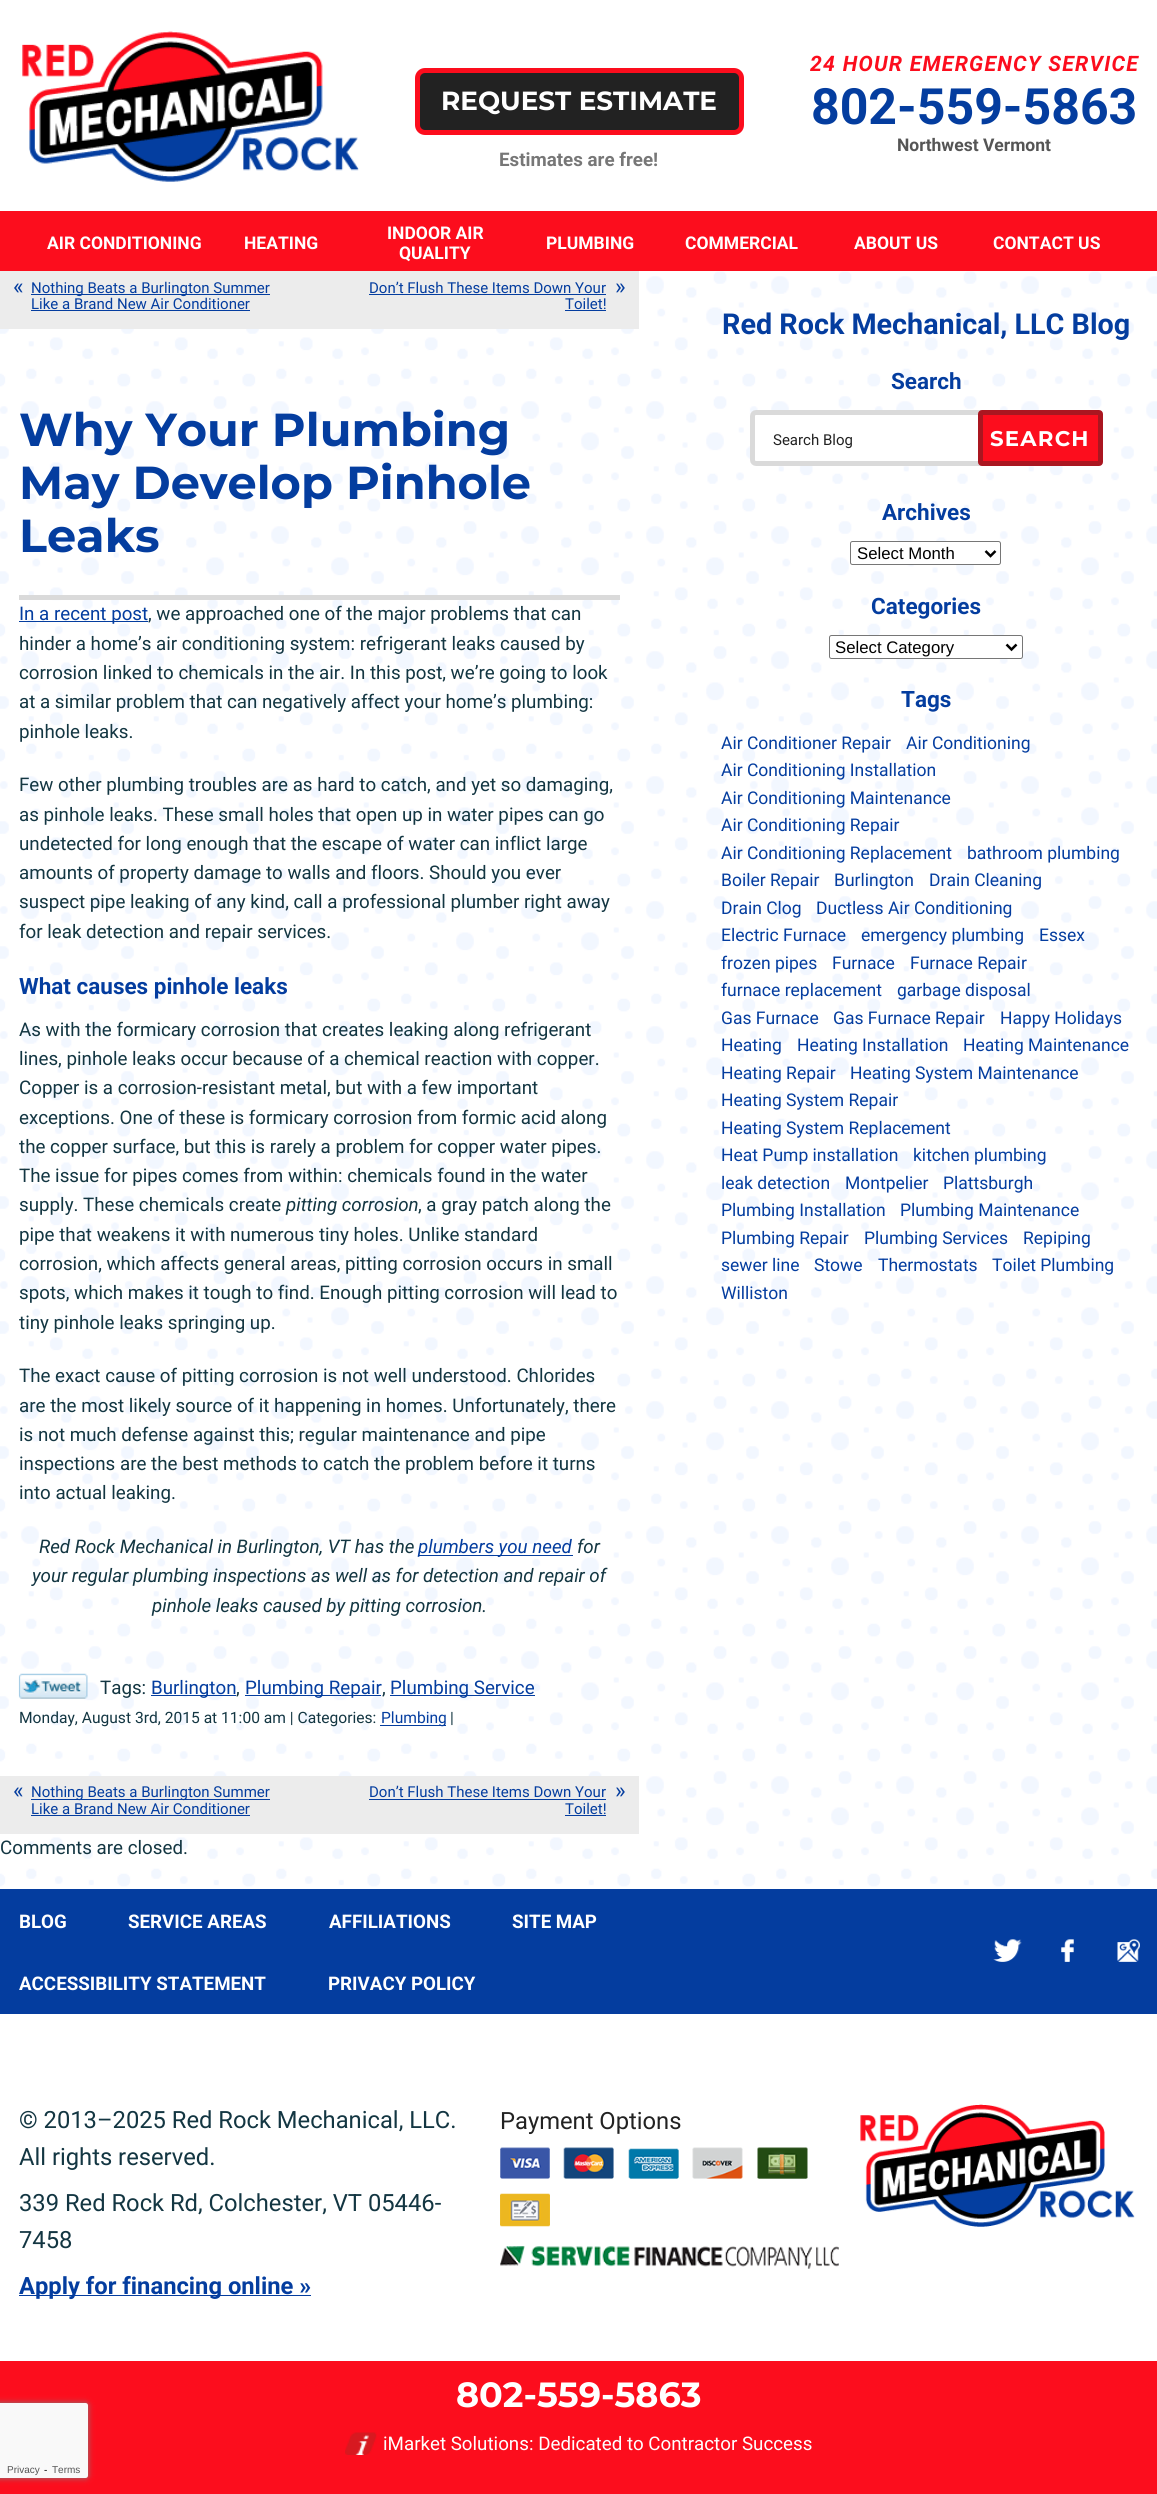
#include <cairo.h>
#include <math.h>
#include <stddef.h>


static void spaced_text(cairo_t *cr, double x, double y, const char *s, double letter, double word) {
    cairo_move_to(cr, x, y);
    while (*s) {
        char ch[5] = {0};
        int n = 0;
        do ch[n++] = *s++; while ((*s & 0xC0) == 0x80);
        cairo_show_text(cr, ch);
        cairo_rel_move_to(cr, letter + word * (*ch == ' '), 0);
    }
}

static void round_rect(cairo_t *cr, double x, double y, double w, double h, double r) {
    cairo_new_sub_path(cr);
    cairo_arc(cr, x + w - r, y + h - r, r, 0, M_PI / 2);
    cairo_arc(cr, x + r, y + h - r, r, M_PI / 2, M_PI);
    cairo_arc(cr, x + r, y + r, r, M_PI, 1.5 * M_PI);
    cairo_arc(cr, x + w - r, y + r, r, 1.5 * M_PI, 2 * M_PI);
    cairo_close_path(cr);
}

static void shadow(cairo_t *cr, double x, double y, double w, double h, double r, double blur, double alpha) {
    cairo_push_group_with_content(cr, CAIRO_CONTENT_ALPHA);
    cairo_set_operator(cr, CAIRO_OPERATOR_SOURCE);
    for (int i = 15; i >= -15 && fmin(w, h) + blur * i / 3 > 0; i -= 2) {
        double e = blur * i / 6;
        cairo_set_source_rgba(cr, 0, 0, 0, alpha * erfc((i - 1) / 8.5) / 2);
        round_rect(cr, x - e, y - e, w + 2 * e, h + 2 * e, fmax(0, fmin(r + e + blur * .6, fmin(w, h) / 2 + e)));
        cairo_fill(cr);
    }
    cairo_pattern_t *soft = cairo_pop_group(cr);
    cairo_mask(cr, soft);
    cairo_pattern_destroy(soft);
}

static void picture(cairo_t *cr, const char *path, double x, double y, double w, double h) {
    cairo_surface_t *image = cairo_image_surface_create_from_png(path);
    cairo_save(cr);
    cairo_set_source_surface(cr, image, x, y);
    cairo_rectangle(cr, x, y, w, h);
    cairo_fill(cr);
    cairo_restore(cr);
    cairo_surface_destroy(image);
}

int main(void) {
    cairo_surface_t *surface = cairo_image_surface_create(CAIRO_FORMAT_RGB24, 1157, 2494);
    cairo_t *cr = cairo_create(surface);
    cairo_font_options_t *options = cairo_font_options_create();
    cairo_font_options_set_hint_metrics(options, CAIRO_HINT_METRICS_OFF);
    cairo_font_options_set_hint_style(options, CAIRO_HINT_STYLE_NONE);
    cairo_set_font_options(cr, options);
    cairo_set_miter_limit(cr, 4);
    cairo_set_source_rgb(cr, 1, 1, 1);
    cairo_paint(cr);
    picture(cr, "img1.png", 22, 31, 337, 151);
    cairo_set_source_rgb(cr, 0.133, 0.133, 0.133);
    round_rect(cr, 417.5, 70.5, 324, 62, 7.5);
    cairo_fill_preserve(cr);
    cairo_set_source_rgb(cr, 0.988, 0.051, 0.114);
    cairo_set_line_width(cr, 5);
    cairo_stroke(cr);
    cairo_select_font_face(cr, "Montserrat Thin", CAIRO_FONT_SLANT_NORMAL, CAIRO_FONT_WEIGHT_NORMAL);
    cairo_set_font_size(cr, 26.25);
    cairo_set_source_rgb(cr, 1, 1, 1);
    cairo_move_to(cr, 441, 110);
    cairo_show_text(cr, "REQUEST ESTIMATE");
    cairo_select_font_face(cr, "Roboto", CAIRO_FONT_SLANT_NORMAL, CAIRO_FONT_WEIGHT_BOLD);
    cairo_set_font_size(cr, 18.75);
    cairo_set_source_rgb(cr, 0.467, 0.467, 0.467);
    cairo_move_to(cr, 499, 166);
    cairo_show_text(cr, "Estimates are free!");
    cairo_select_font_face(cr, "Roboto", CAIRO_FONT_SLANT_ITALIC, CAIRO_FONT_WEIGHT_BOLD);
    cairo_set_font_size(cr, 21.25);
    cairo_set_source_rgb(cr, 0.988, 0.051, 0.114);
    spaced_text(cr, 810, 71, "24 HOUR EMERGENCY SERVICE", 1.25, 0);
    cairo_select_font_face(cr, "Roboto", CAIRO_FONT_SLANT_NORMAL, CAIRO_FONT_WEIGHT_BOLD);
    cairo_set_font_size(cr, 50);
    cairo_set_source_rgb(cr, 0.016, 0.239, 0.624);
    cairo_move_to(cr, 811, 124);
    cairo_show_text(cr, "802-559-5863");
    cairo_set_font_size(cr, 17.5);
    cairo_set_source_rgb(cr, 0.333, 0.333, 0.333);
    cairo_move_to(cr, 897, 151);
    cairo_show_text(cr, "Northwest Vermont");
    cairo_set_source_rgb(cr, 0.988, 0.051, 0.114);
    cairo_rectangle(cr, 0, 211, 1157, 60);
    cairo_fill(cr);
    cairo_set_source_rgb(cr, 1, 1, 1);
    cairo_move_to(cr, 47, 249);
    cairo_show_text(cr, "AIR CONDITIONING");
    cairo_move_to(cr, 244, 249);
    cairo_show_text(cr, "HEATING");
    cairo_move_to(cr, 387, 239);
    cairo_show_text(cr, "INDOOR AIR");
    cairo_move_to(cr, 399, 259);
    cairo_show_text(cr, "QUALITY");
    cairo_move_to(cr, 546, 249);
    cairo_show_text(cr, "PLUMBING");
    cairo_move_to(cr, 685, 249);
    cairo_show_text(cr, "COMMERCIAL");
    cairo_move_to(cr, 854, 249);
    cairo_show_text(cr, "ABOUT US");
    cairo_move_to(cr, 993, 249);
    cairo_show_text(cr, "CONTACT US");
    picture(cr, "img2.png", 0, 271, 1157, 1616);
    cairo_set_source_rgb(cr, 0.922, 0.922, 0.922);
    cairo_rectangle(cr, 0, 271, 639, 58);
    cairo_fill(cr);
    cairo_select_font_face(cr, "Roboto", CAIRO_FONT_SLANT_NORMAL, CAIRO_FONT_WEIGHT_NORMAL);
    cairo_set_font_size(cr, 22.5);
    cairo_set_source_rgb(cr, 0.016, 0.239, 0.624);
    cairo_move_to(cr, 13, 294);
    cairo_show_text(cr, "«");
    cairo_rectangle(cr, 31, 294, 239, 1);
    cairo_fill(cr);
    cairo_set_font_size(cr, 15);
    cairo_move_to(cr, 31, 293);
    cairo_show_text(cr, "Nothing Beats a Burlington Summer");
    cairo_move_to(cr, 31, 309);
    cairo_show_text(cr, "Like a Brand New Air Conditioner");
    cairo_rectangle(cr, 31, 310, 219, 1);
    cairo_fill(cr);
    cairo_move_to(cr, 369, 293);
    cairo_show_text(cr, "Don’t Flush These Items Down Your");
    cairo_rectangle(cr, 369, 294, 237, 1);
    cairo_fill(cr);
    cairo_set_font_size(cr, 22.5);
    cairo_move_to(cr, 615, 294);
    cairo_show_text(cr, "»");
    cairo_set_font_size(cr, 15);
    cairo_move_to(cr, 565, 309);
    cairo_show_text(cr, "Toilet!");
    cairo_rectangle(cr, 565, 310, 41, 1);
    cairo_fill(cr);
    cairo_select_font_face(cr, "Montserrat Thin", CAIRO_FONT_SLANT_NORMAL, CAIRO_FONT_WEIGHT_NORMAL);
    cairo_set_font_size(cr, 46.25);
    cairo_move_to(cr, 19, 446);
    cairo_show_text(cr, "Why Your Plumbing");
    cairo_move_to(cr, 19, 499);
    cairo_show_text(cr, "May Develop Pinhole");
    cairo_move_to(cr, 19, 552);
    cairo_show_text(cr, "Leaks");
    cairo_set_source_rgb(cr, 0.855, 0.855, 0.855);
    cairo_rectangle(cr, 19, 595, 601, 5);
    cairo_fill(cr);
    cairo_set_source_rgb(cr, 0.016, 0.239, 0.624);
    cairo_rectangle(cr, 19, 621, 129, 1);
    cairo_fill(cr);
    cairo_select_font_face(cr, "Roboto", CAIRO_FONT_SLANT_NORMAL, CAIRO_FONT_WEIGHT_NORMAL);
    cairo_set_font_size(cr, 18.75);
    cairo_move_to(cr, 19, 620);
    cairo_show_text(cr, "In a recent post");
    cairo_set_source_rgb(cr, 0.078, 0.212, 0.259);
    cairo_move_to(cr, 148, 620);
    cairo_show_text(cr, ", we approached one of the major problems that can");
    cairo_move_to(cr, 19, 650);
    cairo_show_text(cr, "hinder a home’s air conditioning system: refrigerant leaks caused by");
    cairo_move_to(cr, 19, 679);
    cairo_show_text(cr, "corrosion linked to chemicals in the air. In this post, we’re going to look");
    cairo_move_to(cr, 19, 708);
    cairo_show_text(cr, "at a similar problem that can negatively affect your home’s plumbing:");
    cairo_move_to(cr, 19, 738);
    cairo_show_text(cr, "pinhole leaks.");
    cairo_move_to(cr, 19, 791);
    cairo_show_text(cr, "Few other plumbing troubles are as hard to catch, and yet so damaging,");
    cairo_move_to(cr, 19, 821);
    cairo_show_text(cr, "as pinhole leaks. These small holes that open up in water pipes can go");
    cairo_move_to(cr, 19, 850);
    cairo_show_text(cr, "undetected for long enough that the escape of water can inflict large");
    cairo_move_to(cr, 19, 879);
    cairo_show_text(cr, "amounts of property damage to walls and floors. Should you ever");
    cairo_move_to(cr, 19, 908);
    cairo_show_text(cr, "suspect pipe leaking of any kind, call a professional plumber right away");
    cairo_move_to(cr, 19, 938);
    cairo_show_text(cr, "for leak detection and repair services.");
    cairo_select_font_face(cr, "Roboto", CAIRO_FONT_SLANT_NORMAL, CAIRO_FONT_WEIGHT_BOLD);
    cairo_set_font_size(cr, 22.5);
    cairo_set_source_rgb(cr, 0.016, 0.239, 0.624);
    cairo_move_to(cr, 19, 994);
    cairo_show_text(cr, "What causes pinhole leaks");
    cairo_select_font_face(cr, "Roboto", CAIRO_FONT_SLANT_NORMAL, CAIRO_FONT_WEIGHT_NORMAL);
    cairo_set_font_size(cr, 18.75);
    cairo_set_source_rgb(cr, 0.078, 0.212, 0.259);
    cairo_move_to(cr, 19, 1036);
    cairo_show_text(cr, "As with the formicary corrosion that creates leaking along refrigerant");
    cairo_move_to(cr, 19, 1065);
    cairo_show_text(cr, "lines, pinhole leaks occur because of a chemical reaction with copper.");
    cairo_move_to(cr, 19, 1094);
    cairo_show_text(cr, "Copper is a corrosion-resistant metal, but with a few important");
    cairo_move_to(cr, 19, 1124);
    cairo_show_text(cr, "exceptions. One of these is formicary corrosion from formic acid along");
    cairo_move_to(cr, 19, 1153);
    cairo_show_text(cr, "the copper surface, but this is rarely a problem for copper water pipes.");
    cairo_move_to(cr, 19, 1182);
    cairo_show_text(cr, "The issue for pipes comes from within: chemicals found in the water");
    cairo_move_to(cr, 19, 1211);
    cairo_show_text(cr, "supply. These chemicals create");
    cairo_select_font_face(cr, "Roboto", CAIRO_FONT_SLANT_ITALIC, CAIRO_FONT_WEIGHT_NORMAL);
    cairo_move_to(cr, 286, 1211);
    cairo_show_text(cr, "pitting corrosion");
    cairo_select_font_face(cr, "Roboto", CAIRO_FONT_SLANT_NORMAL, CAIRO_FONT_WEIGHT_NORMAL);
    cairo_move_to(cr, 418, 1211);
    cairo_show_text(cr, ", a gray patch along the");
    cairo_move_to(cr, 19, 1241);
    cairo_show_text(cr, "pipe that weakens it with numerous tiny holes. Unlike standard");
    cairo_move_to(cr, 19, 1270);
    cairo_show_text(cr, "corrosion, which affects general areas, pitting corrosion occurs in small");
    cairo_move_to(cr, 19, 1299);
    cairo_show_text(cr, "spots, which makes it tough to find. Enough pitting corrosion will lead to");
    cairo_move_to(cr, 19, 1329);
    cairo_show_text(cr, "tiny pinhole leaks springing up.");
    cairo_move_to(cr, 19, 1382);
    cairo_show_text(cr, "The exact cause of pitting corrosion is not well understood. Chlorides");
    cairo_move_to(cr, 19, 1412);
    cairo_show_text(cr, "are the most likely source of it happening in homes. Unfortunately, there");
    cairo_move_to(cr, 19, 1441);
    cairo_show_text(cr, "is not much defense against this; regular maintenance and pipe");
    cairo_move_to(cr, 19, 1470);
    cairo_show_text(cr, "inspections are the best methods to catch the problem before it turns");
    cairo_move_to(cr, 19, 1499);
    cairo_show_text(cr, "into actual leaking.");
    cairo_select_font_face(cr, "Roboto", CAIRO_FONT_SLANT_ITALIC, CAIRO_FONT_WEIGHT_NORMAL);
    cairo_move_to(cr, 39, 1553);
    cairo_show_text(cr, "Red Rock Mechanical in Burlington, VT has the");
    cairo_set_source_rgb(cr, 0.016, 0.239, 0.624);
    cairo_rectangle(cr, 419, 1555, 154, 1);
    cairo_fill(cr);
    cairo_move_to(cr, 418, 1553);
    cairo_show_text(cr, "plumbers you need");
    cairo_set_source_rgb(cr, 0.078, 0.212, 0.259);
    cairo_move_to(cr, 577, 1553);
    cairo_show_text(cr, "for");
    cairo_move_to(cr, 32, 1582);
    cairo_show_text(cr, "your regular plumbing inspections as well as for detection and repair of");
    cairo_move_to(cr, 152, 1612);
    cairo_show_text(cr, "pinhole leaks caused by pitting corrosion.");
    picture(cr, "img3.png", 18, 1673, 70, 26);
    cairo_select_font_face(cr, "Roboto", CAIRO_FONT_SLANT_NORMAL, CAIRO_FONT_WEIGHT_NORMAL);
    cairo_move_to(cr, 100, 1694);
    cairo_show_text(cr, "Tags:");
    cairo_set_source_rgb(cr, 0.016, 0.239, 0.624);
    cairo_rectangle(cr, 151, 1695, 85, 1);
    cairo_fill(cr);
    cairo_move_to(cr, 151, 1694);
    cairo_show_text(cr, "Burlington");
    cairo_set_source_rgb(cr, 0.078, 0.212, 0.259);
    cairo_move_to(cr, 236, 1694);
    cairo_show_text(cr, ",");
    cairo_set_source_rgb(cr, 0.016, 0.239, 0.624);
    cairo_rectangle(cr, 245, 1695, 136, 1);
    cairo_fill(cr);
    cairo_move_to(cr, 245, 1694);
    cairo_show_text(cr, "Plumbing Repair");
    cairo_set_source_rgb(cr, 0.078, 0.212, 0.259);
    cairo_move_to(cr, 382, 1694);
    cairo_show_text(cr, ",");
    cairo_set_source_rgb(cr, 0.016, 0.239, 0.624);
    cairo_rectangle(cr, 390, 1695, 145, 1);
    cairo_fill(cr);
    cairo_move_to(cr, 390, 1694);
    cairo_show_text(cr, "Plumbing Service");
    cairo_set_font_size(cr, 15.6);
    cairo_set_source_rgb(cr, 0.078, 0.212, 0.259);
    cairo_move_to(cr, 19, 1723);
    cairo_show_text(cr, "Monday, August 3rd, 2015 at 11:00 am | Categories:");
    cairo_set_source_rgb(cr, 0.016, 0.239, 0.624);
    cairo_rectangle(cr, 380, 1725, 66, 1);
    cairo_fill(cr);
    cairo_move_to(cr, 381, 1723);
    cairo_show_text(cr, "Plumbing");
    cairo_set_source_rgb(cr, 0.078, 0.212, 0.259);
    cairo_move_to(cr, 450, 1723);
    cairo_show_text(cr, "|");
    cairo_set_source_rgb(cr, 0.922, 0.922, 0.922);
    cairo_rectangle(cr, 0, 1776, 639, 58);
    cairo_fill(cr);
    cairo_set_font_size(cr, 22.5);
    cairo_set_source_rgb(cr, 0.016, 0.239, 0.624);
    cairo_move_to(cr, 13, 1798);
    cairo_show_text(cr, "«");
    cairo_rectangle(cr, 31, 1799, 239, 1);
    cairo_fill(cr);
    cairo_set_font_size(cr, 15);
    cairo_move_to(cr, 31, 1797);
    cairo_show_text(cr, "Nothing Beats a Burlington Summer");
    cairo_move_to(cr, 31, 1814);
    cairo_show_text(cr, "Like a Brand New Air Conditioner");
    cairo_rectangle(cr, 31, 1815, 219, 1);
    cairo_fill(cr);
    cairo_move_to(cr, 369, 1797);
    cairo_show_text(cr, "Don’t Flush These Items Down Your");
    cairo_rectangle(cr, 369, 1799, 237, 1);
    cairo_fill(cr);
    cairo_set_font_size(cr, 22.5);
    cairo_move_to(cr, 615, 1798);
    cairo_show_text(cr, "»");
    cairo_set_font_size(cr, 15);
    cairo_move_to(cr, 565, 1814);
    cairo_show_text(cr, "Toilet!");
    cairo_rectangle(cr, 565, 1815, 41, 1);
    cairo_fill(cr);
    cairo_set_font_size(cr, 18.75);
    cairo_set_source_rgb(cr, 0.078, 0.212, 0.259);
    cairo_move_to(cr, 0, 1854);
    cairo_show_text(cr, "Comments are closed.");
    cairo_select_font_face(cr, "Roboto", CAIRO_FONT_SLANT_NORMAL, CAIRO_FONT_WEIGHT_BOLD);
    cairo_set_font_size(cr, 28.75);
    cairo_set_source_rgb(cr, 0.016, 0.239, 0.624);
    cairo_move_to(cr, 722, 334);
    cairo_show_text(cr, "Red Rock Mechanical, LLC Blog");
    cairo_set_font_size(cr, 22.5);
    cairo_move_to(cr, 891, 389);
    cairo_show_text(cr, "Search");
    cairo_set_source_rgb(cr, 1, 1, 1);
    round_rect(cr, 752.5, 412.5, 233, 51, 3.5);
    cairo_fill_preserve(cr);
    cairo_set_source_rgb(cr, 0.855, 0.855, 0.855);
    cairo_stroke(cr);
    cairo_select_font_face(cr, "Roboto", CAIRO_FONT_SLANT_NORMAL, CAIRO_FONT_WEIGHT_NORMAL);
    cairo_set_font_size(cr, 15);
    cairo_set_source_rgb(cr, 0.133, 0.133, 0.133);
    cairo_move_to(cr, 773, 445);
    cairo_show_text(cr, "Search Blog");
    cairo_set_source_rgb(cr, 0.988, 0.051, 0.114);
    round_rect(cr, 980.5, 412.5, 120, 51, 1.5);
    cairo_fill_preserve(cr);
    cairo_set_source_rgb(cr, 0.667, 0.086, 0.125);
    cairo_stroke(cr);
    cairo_select_font_face(cr, "Montserrat Thin", CAIRO_FONT_SLANT_NORMAL, CAIRO_FONT_WEIGHT_NORMAL);
    cairo_set_font_size(cr, 21.25);
    cairo_set_source_rgb(cr, 1, 1, 1);
    spaced_text(cr, 990, 446, "SEARCH", 1.25, 0);
    cairo_select_font_face(cr, "Roboto", CAIRO_FONT_SLANT_NORMAL, CAIRO_FONT_WEIGHT_BOLD);
    cairo_set_font_size(cr, 22.5);
    cairo_set_source_rgb(cr, 0.016, 0.239, 0.624);
    cairo_move_to(cr, 882, 520);
    cairo_show_text(cr, "Archives");
    cairo_set_source_rgb(cr, 1, 1, 1);
    round_rect(cr, 850.5, 541.5, 150, 23, 2);
    cairo_fill_preserve(cr);
    cairo_set_source_rgb(cr, 0.463, 0.463, 0.463);
    cairo_set_line_width(cr, 1);
    cairo_stroke(cr);
    cairo_new_path(cr);
    cairo_move_to(cr, 985.5, 551);
    cairo_line_to(cr, 990.5, 556);
    cairo_line_to(cr, 995.5, 551);
    cairo_set_source_rgb(cr, 0, 0, 0);
    cairo_set_line_width(cr, 2.5);
    cairo_stroke(cr);
    cairo_select_font_face(cr, "Liberation Sans", CAIRO_FONT_SLANT_NORMAL, CAIRO_FONT_WEIGHT_NORMAL);
    cairo_set_font_size(cr, 16.75);
    cairo_move_to(cr, 857, 559);
    cairo_show_text(cr, "Select Month");
    cairo_select_font_face(cr, "Roboto", CAIRO_FONT_SLANT_NORMAL, CAIRO_FONT_WEIGHT_BOLD);
    cairo_set_font_size(cr, 22.5);
    cairo_set_source_rgb(cr, 0.016, 0.239, 0.624);
    cairo_move_to(cr, 871, 614);
    cairo_show_text(cr, "Categories");
    cairo_set_source_rgb(cr, 1, 1, 1);
    round_rect(cr, 829.5, 635.5, 193, 23, 2);
    cairo_fill_preserve(cr);
    cairo_set_source_rgb(cr, 0.463, 0.463, 0.463);
    cairo_set_line_width(cr, 1);
    cairo_stroke(cr);
    cairo_new_path(cr);
    cairo_move_to(cr, 1006.5, 644.5);
    cairo_line_to(cr, 1011.5, 649.5);
    cairo_line_to(cr, 1016.5, 644.5);
    cairo_set_source_rgb(cr, 0, 0, 0);
    cairo_set_line_width(cr, 2.5);
    cairo_stroke(cr);
    cairo_select_font_face(cr, "Liberation Sans", CAIRO_FONT_SLANT_NORMAL, CAIRO_FONT_WEIGHT_NORMAL);
    cairo_set_font_size(cr, 16.75);
    cairo_move_to(cr, 835, 653);
    cairo_show_text(cr, "Select Category");
    cairo_select_font_face(cr, "Roboto", CAIRO_FONT_SLANT_NORMAL, CAIRO_FONT_WEIGHT_BOLD);
    cairo_set_font_size(cr, 22.5);
    cairo_set_source_rgb(cr, 0.016, 0.239, 0.624);
    cairo_move_to(cr, 901, 707);
    cairo_show_text(cr, "Tags");
    cairo_select_font_face(cr, "Roboto", CAIRO_FONT_SLANT_NORMAL, CAIRO_FONT_WEIGHT_NORMAL);
    cairo_set_font_size(cr, 17.5);
    cairo_move_to(cr, 721, 749);
    cairo_show_text(cr, "Air Conditioner Repair");
    cairo_move_to(cr, 906, 749);
    cairo_show_text(cr, "Air Conditioning");
    cairo_move_to(cr, 721, 776);
    cairo_show_text(cr, "Air Conditioning Installation");
    cairo_move_to(cr, 721, 804);
    cairo_show_text(cr, "Air Conditioning Maintenance");
    cairo_move_to(cr, 721, 831);
    cairo_show_text(cr, "Air Conditioning Repair");
    cairo_move_to(cr, 721, 859);
    cairo_show_text(cr, "Air Conditioning Replacement");
    cairo_move_to(cr, 967, 859);
    cairo_show_text(cr, "bathroom plumbing");
    cairo_move_to(cr, 721, 886);
    cairo_show_text(cr, "Boiler Repair");
    cairo_move_to(cr, 834, 886);
    cairo_show_text(cr, "Burlington");
    cairo_move_to(cr, 929, 886);
    cairo_show_text(cr, "Drain Cleaning");
    cairo_move_to(cr, 721, 914);
    cairo_show_text(cr, "Drain Clog");
    cairo_move_to(cr, 816, 914);
    cairo_show_text(cr, "Ductless Air Conditioning");
    cairo_move_to(cr, 721, 941);
    cairo_show_text(cr, "Electric Furnace");
    cairo_move_to(cr, 861, 941);
    cairo_show_text(cr, "emergency plumbing");
    cairo_move_to(cr, 1039, 941);
    cairo_show_text(cr, "Essex");
    cairo_move_to(cr, 721, 969);
    cairo_show_text(cr, "frozen pipes");
    cairo_move_to(cr, 832, 969);
    cairo_show_text(cr, "Furnace");
    cairo_move_to(cr, 910, 969);
    cairo_show_text(cr, "Furnace Repair");
    cairo_move_to(cr, 721, 996);
    cairo_show_text(cr, "furnace replacement");
    cairo_move_to(cr, 897, 996);
    cairo_show_text(cr, "garbage disposal");
    cairo_move_to(cr, 721, 1024);
    cairo_show_text(cr, "Gas Furnace");
    cairo_move_to(cr, 833, 1024);
    cairo_show_text(cr, "Gas Furnace Repair");
    cairo_move_to(cr, 1000, 1024);
    cairo_show_text(cr, "Happy Holidays");
    cairo_move_to(cr, 721, 1051);
    cairo_show_text(cr, "Heating");
    cairo_move_to(cr, 797, 1051);
    cairo_show_text(cr, "Heating Installation");
    cairo_move_to(cr, 963, 1051);
    cairo_show_text(cr, "Heating Maintenance");
    cairo_move_to(cr, 721, 1079);
    cairo_show_text(cr, "Heating Repair");
    cairo_move_to(cr, 850, 1079);
    cairo_show_text(cr, "Heating System Maintenance");
    cairo_move_to(cr, 721, 1106);
    cairo_show_text(cr, "Heating System Repair");
    cairo_move_to(cr, 721, 1134);
    cairo_show_text(cr, "Heating System Replacement");
    cairo_move_to(cr, 721, 1161);
    cairo_show_text(cr, "Heat Pump installation");
    cairo_move_to(cr, 913, 1161);
    cairo_show_text(cr, "kitchen plumbing");
    cairo_move_to(cr, 721, 1189);
    cairo_show_text(cr, "leak detection");
    cairo_move_to(cr, 845, 1189);
    cairo_show_text(cr, "Montpelier");
    cairo_move_to(cr, 943, 1189);
    cairo_show_text(cr, "Plattsburgh");
    cairo_move_to(cr, 721, 1216);
    cairo_show_text(cr, "Plumbing Installation");
    cairo_move_to(cr, 900, 1216);
    cairo_show_text(cr, "Plumbing Maintenance");
    cairo_move_to(cr, 721, 1244);
    cairo_show_text(cr, "Plumbing Repair");
    cairo_move_to(cr, 864, 1244);
    cairo_show_text(cr, "Plumbing Services");
    cairo_move_to(cr, 1023, 1244);
    cairo_show_text(cr, "Repiping");
    cairo_move_to(cr, 721, 1271);
    cairo_show_text(cr, "sewer line");
    cairo_move_to(cr, 814, 1271);
    cairo_show_text(cr, "Stowe");
    cairo_move_to(cr, 878, 1271);
    cairo_show_text(cr, "Thermostats");
    cairo_move_to(cr, 992, 1271);
    cairo_show_text(cr, "Toilet Plumbing");
    cairo_move_to(cr, 721, 1299);
    cairo_show_text(cr, "Williston");
    cairo_rectangle(cr, 0, 1889, 1157, 125);
    cairo_fill(cr);
    cairo_select_font_face(cr, "Roboto", CAIRO_FONT_SLANT_NORMAL, CAIRO_FONT_WEIGHT_BOLD);
    cairo_set_font_size(cr, 18.75);
    cairo_set_source_rgb(cr, 1, 1, 1);
    cairo_move_to(cr, 19, 1928);
    cairo_show_text(cr, "BLOG");
    cairo_move_to(cr, 128, 1928);
    cairo_show_text(cr, "SERVICE AREAS");
    cairo_move_to(cr, 329, 1928);
    cairo_show_text(cr, "AFFILIATIONS");
    cairo_move_to(cr, 512, 1928);
    cairo_show_text(cr, "SITE MAP");
    cairo_move_to(cr, 19, 1990);
    cairo_show_text(cr, "ACCESSIBILITY STATEMENT");
    cairo_move_to(cr, 328, 1990);
    cairo_show_text(cr, "PRIVACY POLICY");
    picture(cr, "img4.png", 993, 1939, 29, 23);
    picture(cr, "img5.png", 1061, 1939, 13, 23);
    picture(cr, "img6.png", 1117, 1939, 23, 23);
    cairo_select_font_face(cr, "Roboto", CAIRO_FONT_SLANT_NORMAL, CAIRO_FONT_WEIGHT_NORMAL);
    cairo_set_font_size(cr, 23.75);
    cairo_set_source_rgb(cr, 0.078, 0.212, 0.259);
    cairo_move_to(cr, 19, 2128);
    cairo_show_text(cr, "© 2013–2025 Red Rock Mechanical, LLC.");
    cairo_move_to(cr, 19, 2165);
    cairo_show_text(cr, "All rights reserved.");
    cairo_move_to(cr, 19, 2211);
    cairo_show_text(cr, "339 Red Rock Rd, Colchester, VT 05446-");
    cairo_move_to(cr, 19, 2248);
    cairo_show_text(cr, "7458");
    cairo_set_source_rgb(cr, 0.016, 0.239, 0.624);
    cairo_rectangle(cr, 19, 2295, 292, 1);
    cairo_fill(cr);
    cairo_select_font_face(cr, "Roboto", CAIRO_FONT_SLANT_NORMAL, CAIRO_FONT_WEIGHT_BOLD);
    cairo_move_to(cr, 19, 2294);
    cairo_show_text(cr, "Apply for financing online »");
    cairo_select_font_face(cr, "Roboto", CAIRO_FONT_SLANT_NORMAL, CAIRO_FONT_WEIGHT_NORMAL);
    cairo_set_source_rgb(cr, 0.133, 0.133, 0.133);
    cairo_move_to(cr, 500, 2129);
    cairo_show_text(cr, "Payment Options");
    picture(cr, "img7.png", 500, 2147, 50, 32);
    picture(cr, "img8.png", 563, 2147, 51, 32);
    picture(cr, "img9.png", 628, 2148, 51, 31);
    picture(cr, "img10.png", 692, 2147, 51, 32);
    picture(cr, "img11.png", 757, 2147, 51, 32);
    picture(cr, "img12.png", 500, 2193, 50, 34);
    picture(cr, "img13.png", 500, 2246, 339, 23);
    picture(cr, "img14.png", 860, 2104, 275, 123);
    cairo_set_source_rgb(cr, 0.988, 0.051, 0.114);
    cairo_rectangle(cr, 0, 2361, 1157, 133);
    cairo_fill(cr);
    cairo_select_font_face(cr, "Montserrat Thin", CAIRO_FONT_SLANT_NORMAL, CAIRO_FONT_WEIGHT_NORMAL);
    cairo_set_font_size(cr, 35);
    cairo_set_source_rgb(cr, 1, 1, 1);
    cairo_move_to(cr, 456, 2407);
    cairo_show_text(cr, "802-559-5863");
    picture(cr, "img15.png", 345, 2432, 32, 23);
    cairo_select_font_face(cr, "Roboto", CAIRO_FONT_SLANT_NORMAL, CAIRO_FONT_WEIGHT_NORMAL);
    cairo_set_font_size(cr, 18.75);
    cairo_move_to(cr, 383, 2450);
    cairo_show_text(cr, "iMarket Solutions");
    cairo_move_to(cr, 529, 2450);
    cairo_show_text(cr, ": Dedicated to Contractor Success");
    cairo_set_source_rgb(cr, 0.502, 0.502, 0.502);
    shadow(cr, -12, 2403, 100, 75, 2.5, 3, 1);
    cairo_save(cr);
    round_rect(cr, -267, 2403, 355, 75, 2.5);
    cairo_clip(cr);
    cairo_set_source_rgb(cr, 0, 0, 0);
    shadow(cr, -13, 2401, 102, 78, 5, 2.5, 0.08);
    cairo_restore(cr);
    cairo_set_source_rgb(cr, 0.976, 0.976, 0.976);
    cairo_new_path(cr);
    cairo_move_to(cr, 0, 2403);
    cairo_line_to(cr, 85.5, 2403);
    cairo_curve_to(cr, 87, 2403, 88, 2404, 88, 2405.5);
    cairo_line_to(cr, 88, 2475.5);
    cairo_curve_to(cr, 88, 2477, 87, 2478, 85.5, 2478);
    cairo_line_to(cr, 0, 2478);
    cairo_close_path(cr);
    cairo_fill(cr);
    cairo_select_font_face(cr, "Liberation Sans", CAIRO_FONT_SLANT_NORMAL, CAIRO_FONT_WEIGHT_NORMAL);
    cairo_set_font_size(cr, 10);
    cairo_set_source_rgb(cr, 0.333, 0.333, 0.333);
    cairo_move_to(cr, 7, 2473);
    cairo_show_text(cr, "Privacy");
    cairo_set_source_rgb(cr, 0, 0, 0);
    cairo_move_to(cr, 44, 2473);
    cairo_show_text(cr, "-");
    cairo_set_source_rgb(cr, 0.333, 0.333, 0.333);
    cairo_move_to(cr, 52, 2473);
    cairo_show_text(cr, "Terms");
    cairo_surface_write_to_png(surface, "page.png");
    cairo_font_options_destroy(options);
    cairo_destroy(cr);
    cairo_surface_destroy(surface);
    return 0;
}
